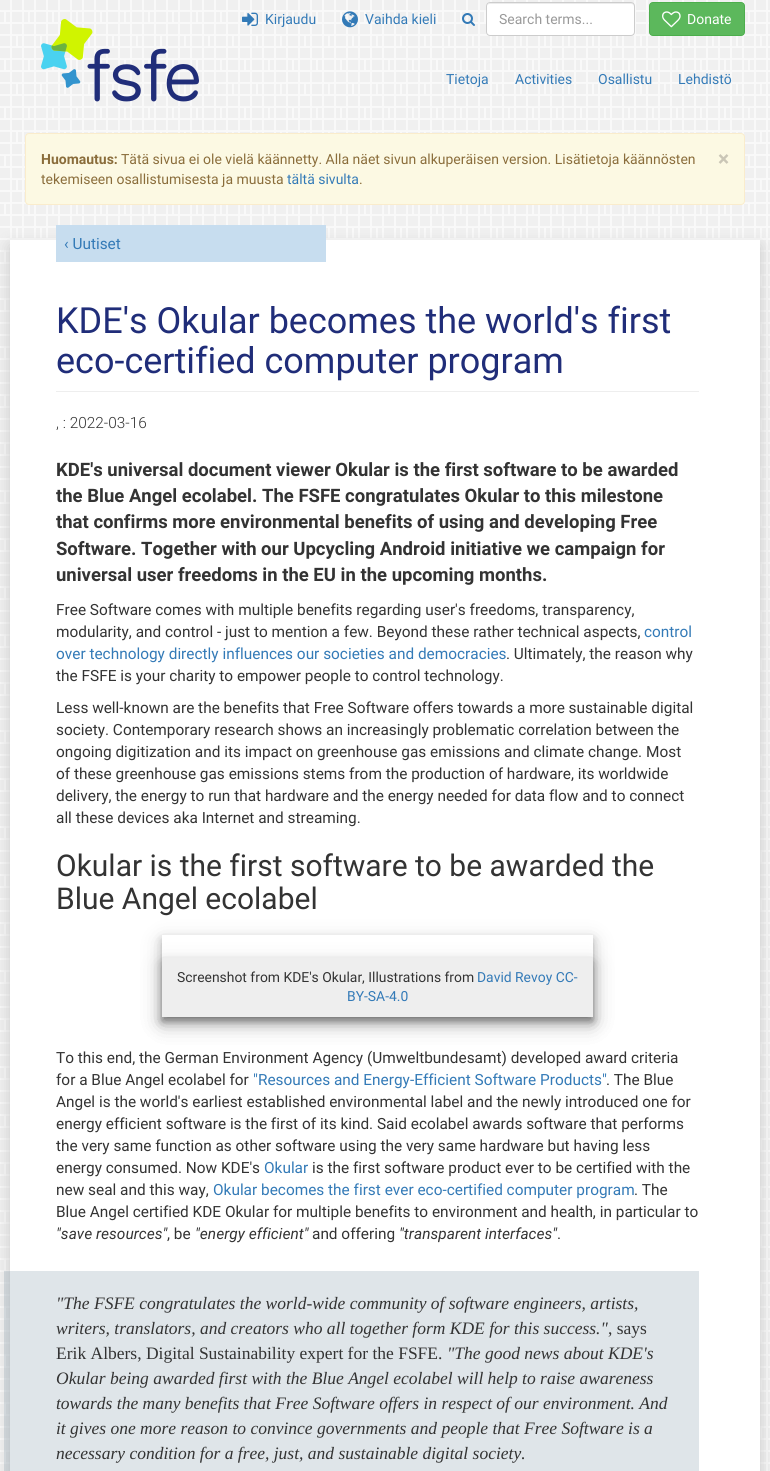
#include <cairo.h>
#include <math.h>
#include <stddef.h>


static void round_rect(cairo_t *cr, double x, double y, double w, double h, double r) {
    cairo_new_sub_path(cr);
    cairo_arc(cr, x + w - r, y + h - r, r, 0, M_PI / 2);
    cairo_arc(cr, x + r, y + h - r, r, M_PI / 2, M_PI);
    cairo_arc(cr, x + r, y + r, r, M_PI, 1.5 * M_PI);
    cairo_arc(cr, x + w - r, y + r, r, 1.5 * M_PI, 2 * M_PI);
    cairo_close_path(cr);
}

static void shadow(cairo_t *cr, double x, double y, double w, double h, double r, double blur, double alpha) {
    cairo_push_group_with_content(cr, CAIRO_CONTENT_ALPHA);
    cairo_set_operator(cr, CAIRO_OPERATOR_SOURCE);
    for (int i = 15; i >= -15 && fmin(w, h) + blur * i / 3 > 0; i -= 2) {
        double e = blur * i / 6;
        cairo_set_source_rgba(cr, 0, 0, 0, alpha * erfc((i - 1) / 8.5) / 2);
        round_rect(cr, x - e, y - e, w + 2 * e, h + 2 * e, fmax(0, fmin(r + e + blur * .6, fmin(w, h) / 2 + e)));
        cairo_fill(cr);
    }
    cairo_pattern_t *soft = cairo_pop_group(cr);
    cairo_mask(cr, soft);
    cairo_pattern_destroy(soft);
}

static void picture(cairo_t *cr, const char *path, double x, double y, double w, double h) {
    cairo_surface_t *image = cairo_image_surface_create_from_png(path);
    cairo_save(cr);
    cairo_set_source_surface(cr, image, x, y);
    cairo_rectangle(cr, x, y, w, h);
    cairo_fill(cr);
    cairo_restore(cr);
    cairo_surface_destroy(image);
}

int main(void) {
    cairo_surface_t *surface = cairo_image_surface_create(CAIRO_FORMAT_RGB24, 770, 1471);
    cairo_t *cr = cairo_create(surface);
    cairo_font_options_t *options = cairo_font_options_create();
    cairo_font_options_set_hint_metrics(options, CAIRO_HINT_METRICS_OFF);
    cairo_font_options_set_hint_style(options, CAIRO_HINT_STYLE_NONE);
    cairo_set_font_options(cr, options);
    cairo_set_miter_limit(cr, 4);
    cairo_set_source_rgb(cr, 1, 1, 1);
    cairo_paint(cr);
    picture(cr, "img1.png", 0, 0, 770, 1471);
    picture(cr, "img2.png", 41, 19, 158, 83);
    picture(cr, "img3.png", 242, 12, 16, 14);
    cairo_select_font_face(cr, "Roboto", CAIRO_FONT_SLANT_NORMAL, CAIRO_FONT_WEIGHT_NORMAL);
    cairo_set_font_size(cr, 14);
    cairo_set_source_rgb(cr, 0.2, 0.478, 0.718);
    cairo_move_to(cr, 265, 24);
    cairo_show_text(cr, "Kirjaudu");
    picture(cr, "img4.png", 342, 11, 16, 17);
    cairo_move_to(cr, 365, 24);
    cairo_show_text(cr, "Vaihda kieli");
    picture(cr, "img5.png", 462, 13, 13, 13);
    cairo_set_source_rgb(cr, 1, 1, 1);
    round_rect(cr, 486, 2, 149, 34, 4);
    cairo_fill(cr);
    cairo_set_source_rgb(cr, 0.925, 0.925, 0.925);
    cairo_new_path(cr);
    cairo_move_to(cr, 490, 4);
    cairo_line_to(cr, 631, 4);
    cairo_curve_to(cr, 633, 4, 634, 5, 634, 7);
    cairo_curve_to(cr, 634, 5, 634, 4, 632, 3);
    cairo_line_to(cr, 514, 3);
    cairo_curve_to(cr, 506, 3, 487, -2, 487, 7);
    cairo_curve_to(cr, 487, 5, 488, 4, 490, 4);
    cairo_close_path(cr);
    cairo_fill(cr);
    round_rect(cr, 486.5, 2.5, 148, 33, 3.5);
    cairo_set_source_rgb(cr, 0.8, 0.8, 0.8);
    cairo_set_line_width(cr, 1);
    cairo_stroke(cr);
    cairo_set_source_rgb(cr, 0.6, 0.6, 0.6);
    cairo_move_to(cr, 499, 24);
    cairo_show_text(cr, "Search terms...");
    cairo_set_source_rgb(cr, 0.361, 0.722, 0.361);
    round_rect(cr, 649.5, 2.5, 95, 33, 3.5);
    cairo_fill_preserve(cr);
    cairo_set_source_rgb(cr, 0.298, 0.682, 0.298);
    cairo_stroke(cr);
    picture(cr, "img6.png", 662, 11, 19, 17);
    cairo_set_source_rgb(cr, 1, 1, 1);
    cairo_move_to(cr, 687, 24);
    cairo_show_text(cr, "Donate");
    cairo_set_source_rgb(cr, 0.2, 0.478, 0.718);
    cairo_move_to(cr, 446, 84);
    cairo_show_text(cr, "Tietoja");
    cairo_move_to(cr, 515, 84);
    cairo_show_text(cr, "Activities");
    cairo_move_to(cr, 598, 84);
    cairo_show_text(cr, "Osallistu");
    cairo_move_to(cr, 678, 84);
    cairo_show_text(cr, "Lehdistö");
    cairo_set_source_rgb(cr, 0.988, 0.973, 0.89);
    round_rect(cr, 25.5, 133.5, 719, 71, 3.5);
    cairo_fill_preserve(cr);
    cairo_set_source_rgb(cr, 0.98, 0.922, 0.8);
    cairo_stroke(cr);
    cairo_select_font_face(cr, "Roboto", CAIRO_FONT_SLANT_NORMAL, CAIRO_FONT_WEIGHT_BOLD);
    cairo_set_source_rgb(cr, 0.541, 0.427, 0.231);
    cairo_move_to(cr, 41, 164);
    cairo_show_text(cr, "Huomautus:");
    cairo_select_font_face(cr, "Roboto", CAIRO_FONT_SLANT_NORMAL, CAIRO_FONT_WEIGHT_NORMAL);
    cairo_move_to(cr, 121, 164);
    cairo_show_text(cr, "Tätä sivua ei ole vielä käännetty. Alla näet sivun alkuperäisen version. Lisätietoja käännösten");
    cairo_move_to(cr, 41, 184);
    cairo_show_text(cr, "tekemiseen osallistumisesta ja muusta");
    cairo_set_source_rgb(cr, 0.2, 0.478, 0.718);
    cairo_move_to(cr, 287, 184);
    cairo_show_text(cr, "tältä sivulta");
    cairo_set_source_rgb(cr, 0.541, 0.427, 0.231);
    cairo_move_to(cr, 359, 184);
    cairo_show_text(cr, ".");
    cairo_select_font_face(cr, "Roboto", CAIRO_FONT_SLANT_NORMAL, CAIRO_FONT_WEIGHT_BOLD);
    cairo_set_font_size(cr, 21);
    cairo_set_source_rgb(cr, 0.792, 0.776, 0.714);
    cairo_move_to(cr, 718, 166);
    cairo_show_text(cr, "×");
    cairo_set_source_rgb(cr, 0.784, 0.784, 0.784);
    shadow(cr, 10, 246, 750, 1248, 0, 7.5, 1);
    cairo_set_source_rgb(cr, 1, 1, 1);
    cairo_rectangle(cr, 10, 240, 750, 1231);
    cairo_fill(cr);
    cairo_set_source_rgb(cr, 0.78, 0.867, 0.937);
    cairo_rectangle(cr, 56, 225, 270, 37);
    cairo_fill(cr);
    cairo_select_font_face(cr, "Roboto", CAIRO_FONT_SLANT_NORMAL, CAIRO_FONT_WEIGHT_NORMAL);
    cairo_set_font_size(cr, 15.4);
    cairo_set_source_rgb(cr, 0.2, 0.478, 0.718);
    cairo_move_to(cr, 64, 249);
    cairo_show_text(cr, "‹ Uutiset");
    cairo_set_source_rgb(cr, 0.933, 0.933, 0.933);
    cairo_rectangle(cr, 56, 391, 643, 1);
    cairo_fill(cr);
    cairo_set_font_size(cr, 36);
    cairo_set_source_rgb(cr, 0.125, 0.176, 0.475);
    cairo_move_to(cr, 56, 333);
    cairo_show_text(cr, "KDE's Okular becomes the world's first");
    cairo_move_to(cr, 56, 373);
    cairo_show_text(cr, "eco-certified computer program");
    cairo_select_font_face(cr, "Roboto Light", CAIRO_FONT_SLANT_NORMAL, CAIRO_FONT_WEIGHT_NORMAL);
    cairo_set_font_size(cr, 15.4);
    cairo_set_source_rgb(cr, 0.2, 0.2, 0.2);
    cairo_move_to(cr, 56, 428);
    cairo_show_text(cr, ", : 2022-03-16");
    cairo_select_font_face(cr, "Roboto", CAIRO_FONT_SLANT_NORMAL, CAIRO_FONT_WEIGHT_BOLD);
    cairo_set_font_size(cr, 18.5);
    cairo_move_to(cr, 56, 476);
    cairo_show_text(cr, "KDE's universal document viewer Okular is the first software to be awarded");
    cairo_move_to(cr, 56, 502);
    cairo_show_text(cr, "the Blue Angel ecolabel. The FSFE congratulates Okular to this milestone");
    cairo_move_to(cr, 56, 528);
    cairo_show_text(cr, "that confirms more environmental benefits of using and developing Free");
    cairo_move_to(cr, 56, 555);
    cairo_show_text(cr, "Software. Together with our Upcycling Android initiative we campaign for");
    cairo_move_to(cr, 56, 581);
    cairo_show_text(cr, "universal user freedoms in the EU in the upcoming months.");
    cairo_select_font_face(cr, "Roboto", CAIRO_FONT_SLANT_NORMAL, CAIRO_FONT_WEIGHT_NORMAL);
    cairo_set_font_size(cr, 15.4);
    cairo_move_to(cr, 56, 615);
    cairo_show_text(cr, "Free Software comes with multiple benefits regarding user's freedoms, transparency,");
    cairo_move_to(cr, 56, 637);
    cairo_show_text(cr, "modularity, and control - just to mention a few. Beyond these rather technical aspects,");
    cairo_set_source_rgb(cr, 0.2, 0.478, 0.718);
    cairo_move_to(cr, 644, 637);
    cairo_show_text(cr, "control");
    cairo_move_to(cr, 56, 659);
    cairo_show_text(cr, "over technology directly influences our societies and democracies");
    cairo_set_source_rgb(cr, 0.2, 0.2, 0.2);
    cairo_move_to(cr, 506, 659);
    cairo_show_text(cr, ". Ultimately, the reason why");
    cairo_move_to(cr, 56, 681);
    cairo_show_text(cr, "the FSFE is your charity to empower people to control technology.");
    cairo_move_to(cr, 56, 713);
    cairo_show_text(cr, "Less well-known are the benefits that Free Software offers towards a more sustainable digital");
    cairo_move_to(cr, 56, 735);
    cairo_show_text(cr, "society. Contemporary research shows an increasingly problematic correlation between the");
    cairo_move_to(cr, 56, 757);
    cairo_show_text(cr, "ongoing digitization and its impact on greenhouse gas emissions and climate change. Most");
    cairo_move_to(cr, 56, 779);
    cairo_show_text(cr, "of these greenhouse gas emissions stems from the production of hardware, its worldwide");
    cairo_move_to(cr, 56, 801);
    cairo_show_text(cr, "delivery, the energy to run that hardware and the energy needed for data flow and to connect");
    cairo_move_to(cr, 56, 823);
    cairo_show_text(cr, "all these devices aka Internet and streaming.");
    cairo_set_font_size(cr, 30);
    cairo_move_to(cr, 56, 876);
    cairo_show_text(cr, "Okular is the first software to be awarded the");
    cairo_move_to(cr, 56, 909);
    cairo_show_text(cr, "Blue Angel ecolabel");
    cairo_save(cr);
    cairo_set_fill_rule(cr, CAIRO_FILL_RULE_EVEN_ODD);
    cairo_new_path(cr);
    cairo_move_to(cr, 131, 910);
    cairo_line_to(cr, 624, 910);
    cairo_line_to(cr, 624, 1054);
    cairo_line_to(cr, 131, 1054);
    cairo_close_path(cr);
    cairo_move_to(cr, 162, 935);
    cairo_line_to(cr, 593, 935);
    cairo_line_to(cr, 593, 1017);
    cairo_line_to(cr, 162, 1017);
    cairo_close_path(cr);
    cairo_clip(cr);
    cairo_set_source_rgb(cr, 0, 0, 0);
    shadow(cr, 162, 941, 431, 82, 0, 10, 0.19);
    cairo_restore(cr);
    cairo_save(cr);
    cairo_set_fill_rule(cr, CAIRO_FILL_RULE_EVEN_ODD);
    cairo_new_path(cr);
    cairo_move_to(cr, 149, 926);
    cairo_line_to(cr, 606, 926);
    cairo_line_to(cr, 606, 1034);
    cairo_line_to(cr, 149, 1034);
    cairo_close_path(cr);
    cairo_move_to(cr, 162, 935);
    cairo_line_to(cr, 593, 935);
    cairo_line_to(cr, 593, 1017);
    cairo_line_to(cr, 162, 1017);
    cairo_close_path(cr);
    cairo_clip(cr);
    cairo_set_source_rgb(cr, 0, 0, 0);
    shadow(cr, 162, 939, 431, 82, 0, 4, 0.2);
    cairo_restore(cr);
    cairo_set_source_rgb(cr, 0, 0, 0);
    shadow(cr, 162, 964, 431, 59, 0, 10, 0.19);
    shadow(cr, 162, 962, 431, 59, 0, 4, 0.2);
    cairo_set_source_rgb(cr, 0.933, 0.933, 0.933);
    cairo_rectangle(cr, 162, 958, 431, 59);
    cairo_fill(cr);
    cairo_set_font_size(cr, 13.9);
    cairo_set_source_rgb(cr, 0.2, 0.2, 0.2);
    cairo_move_to(cr, 177, 982);
    cairo_show_text(cr, "Screenshot from KDE's Okular, Illustrations from");
    cairo_set_source_rgb(cr, 0.2, 0.478, 0.718);
    cairo_move_to(cr, 477, 982);
    cairo_show_text(cr, "David Revoy CC-");
    cairo_move_to(cr, 347, 1001);
    cairo_show_text(cr, "BY-SA-4.0");
    cairo_set_font_size(cr, 15.4);
    cairo_set_source_rgb(cr, 0.2, 0.2, 0.2);
    cairo_move_to(cr, 56, 1063);
    cairo_show_text(cr, "To this end, the German Environment Agency (Umweltbundesamt) developed award criteria");
    cairo_move_to(cr, 56, 1085);
    cairo_show_text(cr, "for a Blue Angel ecolabel for");
    cairo_set_source_rgb(cr, 0.2, 0.478, 0.718);
    cairo_move_to(cr, 253, 1085);
    cairo_show_text(cr, "\"Resources and Energy-Efficient Software Products\"");
    cairo_set_source_rgb(cr, 0.2, 0.2, 0.2);
    cairo_move_to(cr, 606, 1085);
    cairo_show_text(cr, ". The Blue");
    cairo_move_to(cr, 56, 1107);
    cairo_show_text(cr, "Angel is the world's earliest established environmental label and the newly introduced one for");
    cairo_move_to(cr, 56, 1129);
    cairo_show_text(cr, "energy efficient software is the first of its kind. Said ecolabel awards software that performs");
    cairo_move_to(cr, 56, 1151);
    cairo_show_text(cr, "the very same function as other software using the very same hardware but having less");
    cairo_move_to(cr, 56, 1173);
    cairo_show_text(cr, "energy consumed. Now KDE's");
    cairo_set_source_rgb(cr, 0.2, 0.478, 0.718);
    cairo_move_to(cr, 264, 1173);
    cairo_show_text(cr, "Okular");
    cairo_set_source_rgb(cr, 0.2, 0.2, 0.2);
    cairo_move_to(cr, 312, 1173);
    cairo_show_text(cr, "is the first software product ever to be certified with the");
    cairo_move_to(cr, 56, 1195);
    cairo_show_text(cr, "new seal and this way,");
    cairo_set_source_rgb(cr, 0.2, 0.478, 0.718);
    cairo_move_to(cr, 213, 1195);
    cairo_show_text(cr, "Okular becomes the first ever eco-certified computer program");
    cairo_set_source_rgb(cr, 0.2, 0.2, 0.2);
    cairo_move_to(cr, 634, 1195);
    cairo_show_text(cr, ". The");
    cairo_move_to(cr, 56, 1217);
    cairo_show_text(cr, "Blue Angel certified KDE Okular for multiple benefits to environment and health, in particular to");
    cairo_select_font_face(cr, "Roboto", CAIRO_FONT_SLANT_ITALIC, CAIRO_FONT_WEIGHT_NORMAL);
    cairo_move_to(cr, 56, 1239);
    cairo_show_text(cr, "\"save resources\"");
    cairo_select_font_face(cr, "Roboto", CAIRO_FONT_SLANT_NORMAL, CAIRO_FONT_WEIGHT_NORMAL);
    cairo_move_to(cr, 167, 1239);
    cairo_show_text(cr, ", be");
    cairo_select_font_face(cr, "Roboto", CAIRO_FONT_SLANT_ITALIC, CAIRO_FONT_WEIGHT_NORMAL);
    cairo_move_to(cr, 195, 1239);
    cairo_show_text(cr, "\"energy efficient\"");
    cairo_select_font_face(cr, "Roboto", CAIRO_FONT_SLANT_NORMAL, CAIRO_FONT_WEIGHT_NORMAL);
    cairo_move_to(cr, 312, 1239);
    cairo_show_text(cr, "and offering");
    cairo_select_font_face(cr, "Roboto", CAIRO_FONT_SLANT_ITALIC, CAIRO_FONT_WEIGHT_NORMAL);
    cairo_move_to(cr, 399, 1239);
    cairo_show_text(cr, "\"transparent interfaces\"");
    cairo_select_font_face(cr, "Roboto", CAIRO_FONT_SLANT_NORMAL, CAIRO_FONT_WEIGHT_NORMAL);
    cairo_move_to(cr, 557, 1239);
    cairo_show_text(cr, ".");
    cairo_set_source_rgba(cr, 0.455, 0.549, 0.612, 0.23);
    cairo_rectangle(cr, 4, 1271, 695, 200);
    cairo_fill(cr);
    cairo_select_font_face(cr, "Liberation Serif", CAIRO_FONT_SLANT_ITALIC, CAIRO_FONT_WEIGHT_NORMAL);
    cairo_set_font_size(cr, 17.5);
    cairo_set_source_rgb(cr, 0.2, 0.2, 0.2);
    cairo_move_to(cr, 56, 1309);
    cairo_show_text(cr, "\"The FSFE congratulates the world-wide community of software engineers, artists,");
    cairo_move_to(cr, 56, 1334);
    cairo_show_text(cr, "writers, translators, and creators who all together form KDE for this success.\"");
    cairo_select_font_face(cr, "Liberation Serif", CAIRO_FONT_SLANT_NORMAL, CAIRO_FONT_WEIGHT_NORMAL);
    cairo_move_to(cr, 608, 1334);
    cairo_show_text(cr, ", says");
    cairo_move_to(cr, 56, 1359);
    cairo_show_text(cr, "Erik Albers, Digital Sustainability expert for the FSFE.");
    cairo_select_font_face(cr, "Liberation Serif", CAIRO_FONT_SLANT_ITALIC, CAIRO_FONT_WEIGHT_NORMAL);
    cairo_move_to(cr, 447, 1359);
    cairo_show_text(cr, "\"The good news about KDE's");
    cairo_move_to(cr, 56, 1384);
    cairo_show_text(cr, "Okular being awarded first with the Blue Angel ecolabel will help to raise awareness");
    cairo_move_to(cr, 56, 1409);
    cairo_show_text(cr, "towards the many benefits that Free Software offers in respect of our environment. And");
    cairo_move_to(cr, 56, 1434);
    cairo_show_text(cr, "it gives one more reason to convince governments and people that Free Software is a");
    cairo_move_to(cr, 56, 1459);
    cairo_show_text(cr, "necessary condition for a free, just, and sustainable digital society.");
    cairo_surface_write_to_png(surface, "page.png");
    cairo_font_options_destroy(options);
    cairo_destroy(cr);
    cairo_surface_destroy(surface);
    return 0;
}
